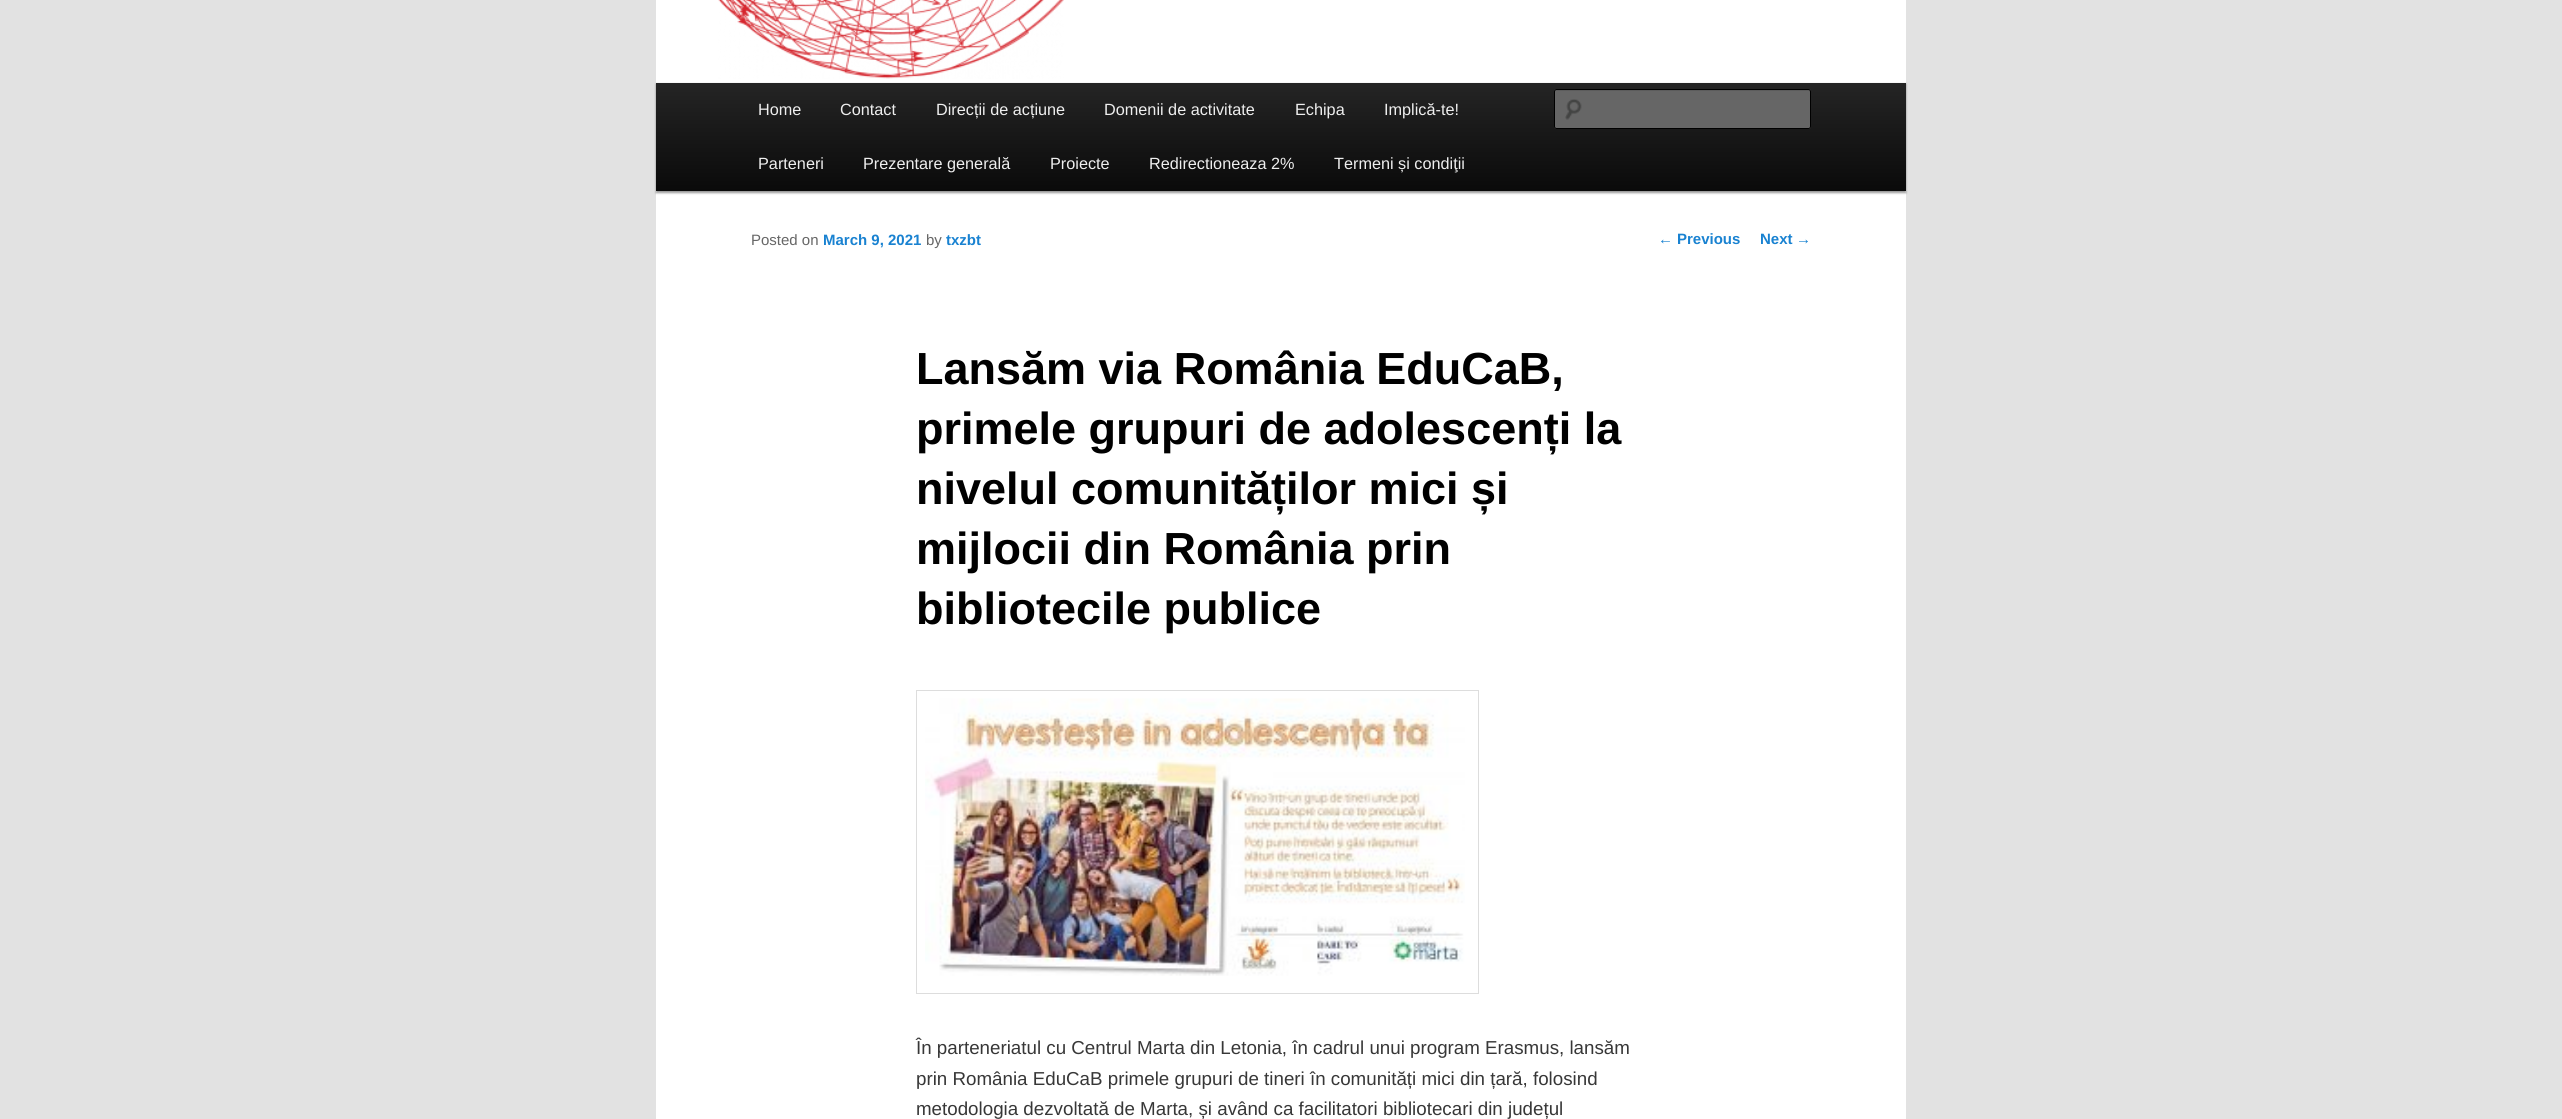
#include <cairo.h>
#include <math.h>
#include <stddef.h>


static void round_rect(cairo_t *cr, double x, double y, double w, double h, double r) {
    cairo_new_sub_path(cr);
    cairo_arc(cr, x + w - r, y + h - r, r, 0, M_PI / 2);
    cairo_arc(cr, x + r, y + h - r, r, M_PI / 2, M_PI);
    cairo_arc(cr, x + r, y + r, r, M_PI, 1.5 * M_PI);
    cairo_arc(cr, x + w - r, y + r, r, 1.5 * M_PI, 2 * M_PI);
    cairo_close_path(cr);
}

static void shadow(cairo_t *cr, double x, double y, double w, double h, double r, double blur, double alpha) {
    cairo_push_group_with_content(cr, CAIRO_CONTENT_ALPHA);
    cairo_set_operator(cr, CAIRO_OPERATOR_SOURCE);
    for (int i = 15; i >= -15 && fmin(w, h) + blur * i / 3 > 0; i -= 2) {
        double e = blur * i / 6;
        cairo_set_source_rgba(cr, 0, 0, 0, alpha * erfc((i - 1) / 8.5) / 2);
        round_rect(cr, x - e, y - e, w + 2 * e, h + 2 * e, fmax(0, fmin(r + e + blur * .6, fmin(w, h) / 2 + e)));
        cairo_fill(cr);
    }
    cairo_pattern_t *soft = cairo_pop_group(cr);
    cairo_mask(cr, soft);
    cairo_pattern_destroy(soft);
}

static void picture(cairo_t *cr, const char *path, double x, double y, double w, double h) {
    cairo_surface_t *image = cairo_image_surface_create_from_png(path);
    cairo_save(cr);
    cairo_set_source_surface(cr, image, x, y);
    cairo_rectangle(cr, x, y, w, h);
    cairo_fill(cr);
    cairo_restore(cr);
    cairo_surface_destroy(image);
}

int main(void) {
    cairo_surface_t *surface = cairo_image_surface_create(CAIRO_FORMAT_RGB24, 2562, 1119);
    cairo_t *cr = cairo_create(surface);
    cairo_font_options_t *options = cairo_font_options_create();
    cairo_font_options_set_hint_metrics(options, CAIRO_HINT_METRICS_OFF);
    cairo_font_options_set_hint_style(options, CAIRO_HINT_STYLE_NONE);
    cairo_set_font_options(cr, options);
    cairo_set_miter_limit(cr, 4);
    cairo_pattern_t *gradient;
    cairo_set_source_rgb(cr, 0.886, 0.886, 0.886);
    cairo_paint(cr);
    cairo_set_source_rgb(cr, 1, 1, 1);
    cairo_rectangle(cr, 656, 0, 1250, 1119);
    cairo_fill(cr);
    picture(cr, "img1.png", 718, 0, 346, 79);
    cairo_set_source_rgb(cr, 0, 0, 0);
    shadow(cr, 656, 84, 1250, 109, 0, 1, 0.4);
    gradient = cairo_pattern_create_linear(1281, 82, 1281, 191);
    cairo_pattern_add_color_stop_rgba(gradient, 0, 0.145, 0.145, 0.145, 1);
    cairo_pattern_add_color_stop_rgba(gradient, 1, 0.039, 0.039, 0.039, 1);
    cairo_set_source(cr, gradient);
    cairo_pattern_destroy(gradient);
    cairo_rectangle(cr, 656, 83, 1250, 108);
    cairo_fill(cr);
    cairo_select_font_face(cr, "Liberation Sans", CAIRO_FONT_SLANT_NORMAL, CAIRO_FONT_WEIGHT_NORMAL);
    cairo_set_font_size(cr, 16.25);
    cairo_set_source_rgb(cr, 0.933, 0.933, 0.933);
    cairo_move_to(cr, 758, 115);
    cairo_show_text(cr, "Home");
    cairo_move_to(cr, 840, 115);
    cairo_show_text(cr, "Contact");
    cairo_move_to(cr, 936, 115);
    cairo_show_text(cr, "Direcții de acțiune");
    cairo_move_to(cr, 1104, 115);
    cairo_show_text(cr, "Domenii de activitate");
    cairo_move_to(cr, 1295, 115);
    cairo_show_text(cr, "Echipa");
    cairo_move_to(cr, 1384, 115);
    cairo_show_text(cr, "Implică-te!");
    cairo_move_to(cr, 758, 169);
    cairo_show_text(cr, "Parteneri");
    cairo_move_to(cr, 863, 169);
    cairo_show_text(cr, "Prezentare generală");
    cairo_move_to(cr, 1050, 169);
    cairo_show_text(cr, "Proiecte");
    cairo_move_to(cr, 1149, 169);
    cairo_show_text(cr, "Redirectioneaza 2%");
    cairo_move_to(cr, 1334, 169);
    cairo_show_text(cr, "Termeni și condiţii");
    cairo_set_source_rgb(cr, 0.4, 0.4, 0.4);
    round_rect(cr, 1554, 89, 257, 40, 2.5);
    cairo_fill(cr);
    picture(cr, "img2.png", 1565, 99, 17, 21);
    cairo_set_source_rgb(cr, 0.361, 0.361, 0.361);
    cairo_new_path(cr);
    cairo_move_to(cr, 1556, 91);
    cairo_line_to(cr, 1809, 91);
    cairo_line_to(cr, 1810, 92);
    cairo_line_to(cr, 1810, 90);
    cairo_line_to(cr, 1556, 90);
    cairo_curve_to(cr, 1555, 90, 1555, 91, 1555, 92);
    cairo_close_path(cr);
    cairo_fill(cr);
    round_rect(cr, 1554.5, 89.5, 256, 39, 2);
    cairo_set_source_rgb(cr, 0, 0, 0);
    cairo_set_line_width(cr, 1);
    cairo_stroke(cr);
    cairo_set_font_size(cr, 15);
    cairo_set_source_rgb(cr, 0.4, 0.4, 0.4);
    cairo_move_to(cr, 751, 245);
    cairo_show_text(cr, "Posted on");
    cairo_select_font_face(cr, "Liberation Sans", CAIRO_FONT_SLANT_NORMAL, CAIRO_FONT_WEIGHT_BOLD);
    cairo_set_source_rgb(cr, 0.098, 0.51, 0.82);
    cairo_move_to(cr, 823, 245);
    cairo_show_text(cr, "March 9, 2021");
    cairo_select_font_face(cr, "Liberation Sans", CAIRO_FONT_SLANT_NORMAL, CAIRO_FONT_WEIGHT_NORMAL);
    cairo_set_source_rgb(cr, 0.4, 0.4, 0.4);
    cairo_move_to(cr, 926, 245);
    cairo_show_text(cr, "by");
    cairo_select_font_face(cr, "Liberation Sans", CAIRO_FONT_SLANT_NORMAL, CAIRO_FONT_WEIGHT_BOLD);
    cairo_set_source_rgb(cr, 0.098, 0.51, 0.82);
    cairo_move_to(cr, 946, 245);
    cairo_show_text(cr, "txzbt");
    cairo_set_font_size(cr, 45);
    cairo_set_source_rgb(cr, 0, 0, 0);
    cairo_move_to(cr, 916, 384);
    cairo_show_text(cr, "Lansăm via România EduCaB,");
    cairo_move_to(cr, 916, 444);
    cairo_show_text(cr, "primele grupuri de adolescenți la");
    cairo_move_to(cr, 916, 504);
    cairo_show_text(cr, "nivelul comunităților mici și");
    cairo_move_to(cr, 916, 564);
    cairo_show_text(cr, "mijlocii din România prin");
    cairo_move_to(cr, 916, 624);
    cairo_show_text(cr, "bibliotecile publice");
    cairo_rectangle(cr, 916.5, 690.5, 562, 303);
    cairo_set_source_rgb(cr, 0.867, 0.867, 0.867);
    cairo_stroke(cr);
    picture(cr, "img3.png", 925, 698, 540, 278);
    cairo_select_font_face(cr, "Liberation Sans", CAIRO_FONT_SLANT_NORMAL, CAIRO_FONT_WEIGHT_NORMAL);
    cairo_set_font_size(cr, 18.75);
    cairo_set_source_rgb(cr, 0.216, 0.216, 0.216);
    cairo_move_to(cr, 916, 1054);
    cairo_show_text(cr, "În parteneriatul cu Centrul Marta din Letonia, în cadrul unui program Erasmus, lansăm");
    cairo_move_to(cr, 916, 1085);
    cairo_show_text(cr, "prin România EduCaB primele grupuri de tineri în comunități mici din țară, folosind");
    cairo_move_to(cr, 916, 1115);
    cairo_show_text(cr, "metodologia dezvoltată de Marta, și având ca facilitatori bibliotecari din județul");
    cairo_set_font_size(cr, 15);
    cairo_set_source_rgb(cr, 0.098, 0.51, 0.82);
    cairo_move_to(cr, 1658, 244);
    cairo_show_text(cr, "←");
    cairo_select_font_face(cr, "Liberation Sans", CAIRO_FONT_SLANT_NORMAL, CAIRO_FONT_WEIGHT_BOLD);
    cairo_move_to(cr, 1677, 244);
    cairo_show_text(cr, "Previous");
    cairo_move_to(cr, 1760, 244);
    cairo_show_text(cr, "Next");
    cairo_select_font_face(cr, "Liberation Sans", CAIRO_FONT_SLANT_NORMAL, CAIRO_FONT_WEIGHT_NORMAL);
    cairo_move_to(cr, 1796, 244);
    cairo_show_text(cr, "→");
    cairo_surface_write_to_png(surface, "page.png");
    cairo_font_options_destroy(options);
    cairo_destroy(cr);
    cairo_surface_destroy(surface);
    return 0;
}
